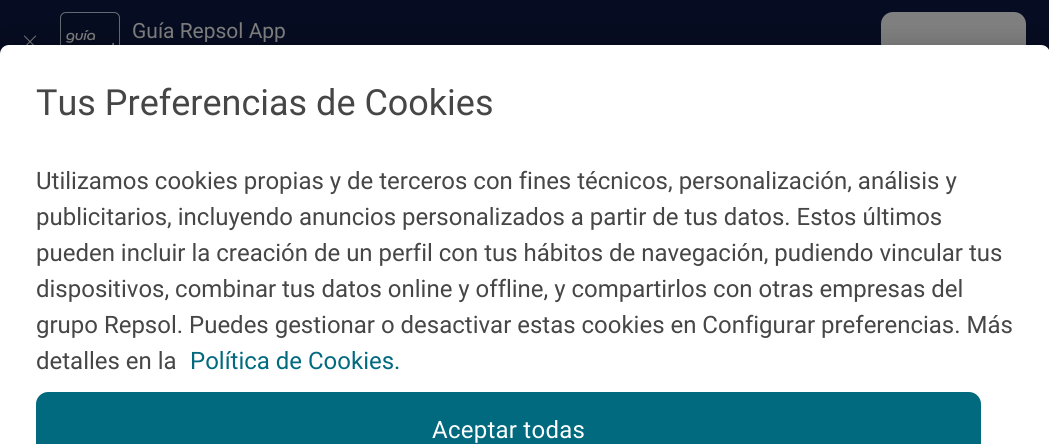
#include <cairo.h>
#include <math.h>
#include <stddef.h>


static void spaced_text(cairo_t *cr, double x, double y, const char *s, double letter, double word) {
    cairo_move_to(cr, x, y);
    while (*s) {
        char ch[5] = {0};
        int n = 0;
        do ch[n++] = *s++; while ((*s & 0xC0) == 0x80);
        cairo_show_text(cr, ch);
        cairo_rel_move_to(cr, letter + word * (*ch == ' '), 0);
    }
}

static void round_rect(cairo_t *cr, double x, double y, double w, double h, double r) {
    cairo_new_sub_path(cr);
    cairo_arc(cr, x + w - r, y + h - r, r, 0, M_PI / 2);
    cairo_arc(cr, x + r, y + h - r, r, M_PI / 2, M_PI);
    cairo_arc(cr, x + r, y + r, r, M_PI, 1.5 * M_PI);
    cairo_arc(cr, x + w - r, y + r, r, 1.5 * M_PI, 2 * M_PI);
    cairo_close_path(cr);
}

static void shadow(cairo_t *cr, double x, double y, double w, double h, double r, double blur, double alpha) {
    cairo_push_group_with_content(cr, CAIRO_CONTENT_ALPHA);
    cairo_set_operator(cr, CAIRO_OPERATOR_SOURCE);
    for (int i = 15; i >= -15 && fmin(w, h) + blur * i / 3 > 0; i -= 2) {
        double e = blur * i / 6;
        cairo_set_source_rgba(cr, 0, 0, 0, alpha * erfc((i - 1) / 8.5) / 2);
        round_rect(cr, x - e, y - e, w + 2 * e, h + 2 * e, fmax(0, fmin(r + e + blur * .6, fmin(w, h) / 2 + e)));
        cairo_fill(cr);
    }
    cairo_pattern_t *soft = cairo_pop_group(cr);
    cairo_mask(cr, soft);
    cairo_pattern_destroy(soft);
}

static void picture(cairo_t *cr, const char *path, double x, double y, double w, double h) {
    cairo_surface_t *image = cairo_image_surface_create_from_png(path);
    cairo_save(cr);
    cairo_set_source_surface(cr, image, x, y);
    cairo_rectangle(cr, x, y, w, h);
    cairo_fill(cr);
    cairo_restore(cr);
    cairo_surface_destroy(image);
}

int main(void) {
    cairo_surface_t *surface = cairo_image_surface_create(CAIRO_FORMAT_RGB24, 1049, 444);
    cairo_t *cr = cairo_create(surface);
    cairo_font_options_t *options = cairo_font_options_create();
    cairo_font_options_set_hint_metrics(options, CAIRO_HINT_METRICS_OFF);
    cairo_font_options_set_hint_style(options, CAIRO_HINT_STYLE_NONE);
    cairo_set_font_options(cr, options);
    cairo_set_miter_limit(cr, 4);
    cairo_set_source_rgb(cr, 0.024, 0.047, 0.129);
    cairo_paint(cr);
    picture(cr, "img1.png", 23, 35, 14, 10);
    picture(cr, "img2.png", 60, 12, 60, 33);
    cairo_save(cr);
    cairo_rectangle(cr, 132, 18, 177, 24);
    cairo_clip(cr);
    cairo_select_font_face(cr, "Roboto", CAIRO_FONT_SLANT_NORMAL, CAIRO_FONT_WEIGHT_NORMAL);
    cairo_set_font_size(cr, 21);
    cairo_set_source_rgb(cr, 0.502, 0.502, 0.502);
    cairo_move_to(cr, 132, 38);
    cairo_show_text(cr, "Guía Repsol App");
    cairo_restore(cr);
    cairo_set_source_rgb(cr, 0.502, 0.502, 0.502);
    round_rect(cr, 881, 12, 145, 60, 12);
    cairo_fill(cr);
    cairo_set_source_rgb(cr, 0, 0, 0);
    shadow(cr, 0, 45, 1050, 399, 9, 13.5, 0.2);
    cairo_set_source_rgb(cr, 1, 1, 1);
    cairo_new_path(cr);
    cairo_move_to(cr, 9, 45);
    cairo_line_to(cr, 1041, 45);
    cairo_curve_to(cr, 1046, 45, 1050, 49, 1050, 54);
    cairo_line_to(cr, 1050, 444);
    cairo_line_to(cr, 0, 444);
    cairo_line_to(cr, 0, 54);
    cairo_curve_to(cr, 0, 49, 4, 45, 9, 45);
    cairo_close_path(cr);
    cairo_fill(cr);
    cairo_select_font_face(cr, "Roboto", CAIRO_FONT_SLANT_NORMAL, CAIRO_FONT_WEIGHT_NORMAL);
    cairo_set_font_size(cr, 36);
    cairo_set_source_rgb(cr, 0.275, 0.275, 0.275);
    cairo_move_to(cr, 36, 115);
    cairo_show_text(cr, "Tus Preferencias de Cookies");
    cairo_set_font_size(cr, 24);
    cairo_move_to(cr, 36, 189);
    cairo_show_text(cr, "Utilizamos cookies propias y de terceros con fines técnicos, personalización, análisis y");
    cairo_move_to(cr, 36, 225);
    cairo_show_text(cr, "publicitarios, incluyendo anuncios personalizados a partir de tus datos. Estos últimos");
    cairo_move_to(cr, 36, 261);
    cairo_show_text(cr, "pueden incluir la creación de un perfil con tus hábitos de navegación, pudiendo vincular tus");
    cairo_move_to(cr, 36, 297);
    cairo_show_text(cr, "dispositivos, combinar tus datos online y offline, y compartirlos con otras empresas del");
    cairo_move_to(cr, 36, 333);
    cairo_show_text(cr, "grupo Repsol. Puedes gestionar o desactivar estas cookies en Configurar preferencias. Más");
    cairo_move_to(cr, 36, 369);
    cairo_show_text(cr, "detalles en la");
    cairo_set_source_rgb(cr, 0.004, 0.416, 0.498);
    cairo_move_to(cr, 190, 369);
    cairo_show_text(cr, "Política de Cookies.");
    cairo_new_path(cr);
    cairo_move_to(cr, 48, 392);
    cairo_line_to(cr, 969, 392);
    cairo_curve_to(cr, 975.5, 392, 981, 397.5, 981, 404);
    cairo_line_to(cr, 981, 444);
    cairo_line_to(cr, 36, 444);
    cairo_line_to(cr, 36, 404);
    cairo_curve_to(cr, 36, 397.5, 41.5, 392, 48, 392);
    cairo_close_path(cr);
    cairo_fill(cr);
    cairo_set_source_rgb(cr, 1, 1, 1);
    spaced_text(cr, 432, 438, "Aceptar todas", 0.25, 0);
    cairo_surface_write_to_png(surface, "page.png");
    cairo_font_options_destroy(options);
    cairo_destroy(cr);
    cairo_surface_destroy(surface);
    return 0;
}
